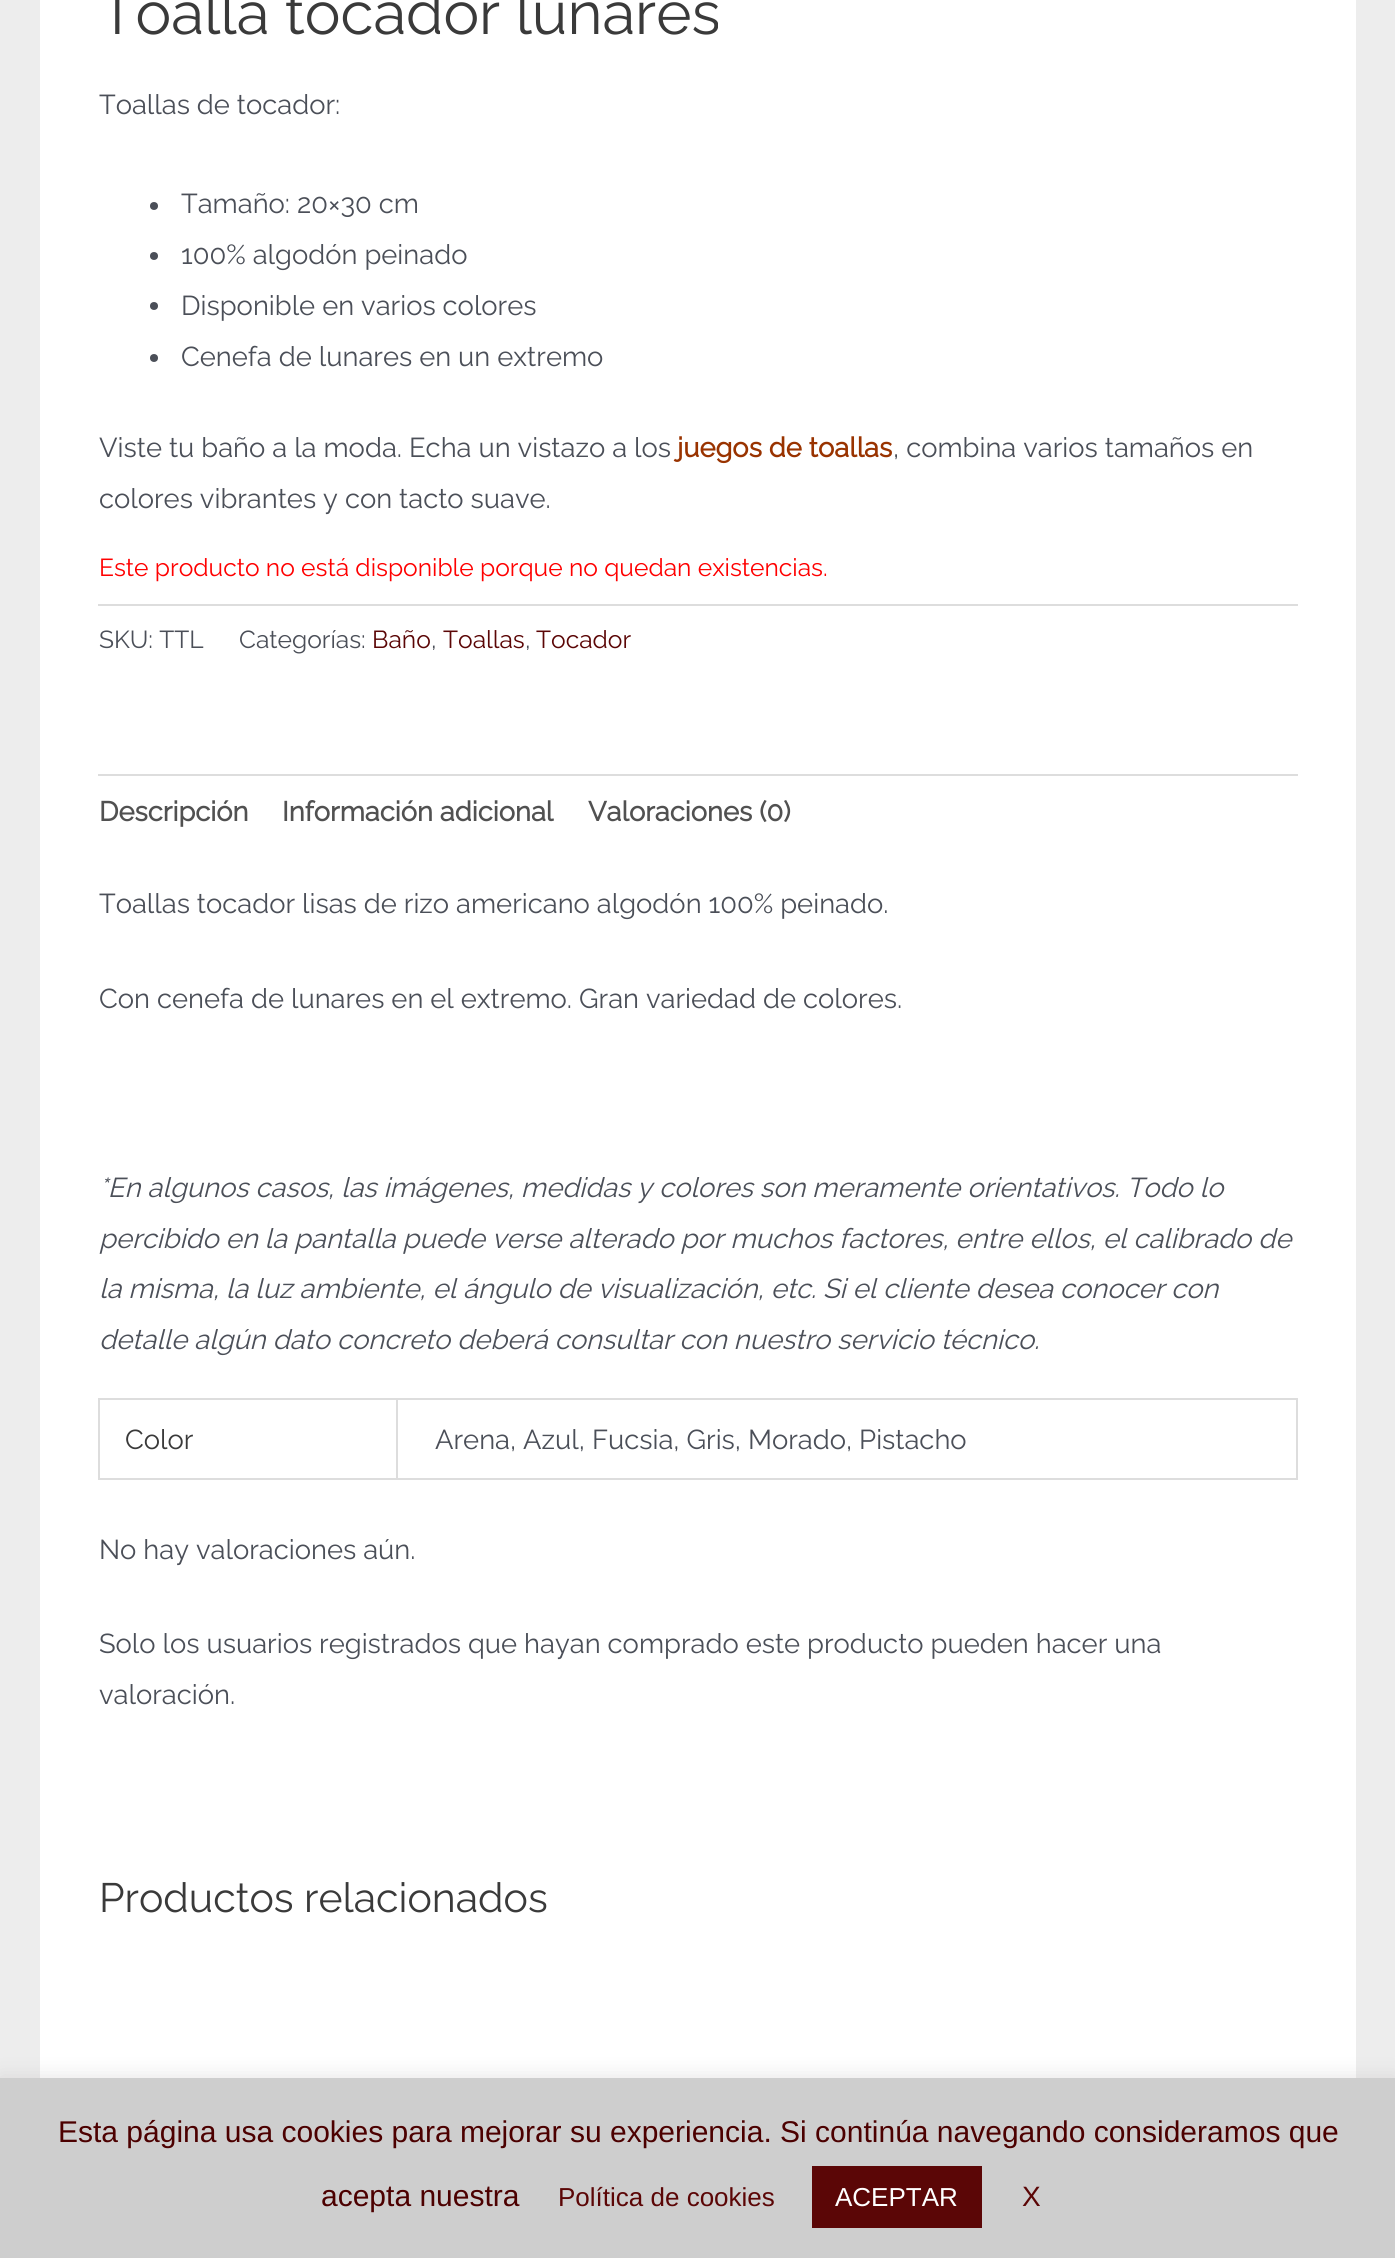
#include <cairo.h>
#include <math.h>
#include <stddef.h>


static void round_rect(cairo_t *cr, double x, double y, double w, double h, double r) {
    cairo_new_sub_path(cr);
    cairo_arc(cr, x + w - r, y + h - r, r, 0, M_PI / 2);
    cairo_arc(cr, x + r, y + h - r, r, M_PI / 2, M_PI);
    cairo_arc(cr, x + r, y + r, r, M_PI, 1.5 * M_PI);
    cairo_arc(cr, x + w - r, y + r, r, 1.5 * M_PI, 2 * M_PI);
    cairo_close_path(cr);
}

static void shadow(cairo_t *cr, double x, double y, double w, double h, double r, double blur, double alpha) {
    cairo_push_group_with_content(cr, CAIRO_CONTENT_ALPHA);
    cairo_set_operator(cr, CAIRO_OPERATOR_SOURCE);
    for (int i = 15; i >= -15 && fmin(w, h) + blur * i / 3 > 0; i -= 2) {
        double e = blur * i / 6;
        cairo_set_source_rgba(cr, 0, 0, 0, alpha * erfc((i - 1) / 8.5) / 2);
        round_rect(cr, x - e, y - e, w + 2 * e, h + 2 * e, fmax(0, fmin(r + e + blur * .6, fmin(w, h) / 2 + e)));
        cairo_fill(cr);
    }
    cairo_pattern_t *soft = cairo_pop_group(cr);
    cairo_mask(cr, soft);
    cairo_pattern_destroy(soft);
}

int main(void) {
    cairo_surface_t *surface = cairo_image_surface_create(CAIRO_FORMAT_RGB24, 1395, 2258);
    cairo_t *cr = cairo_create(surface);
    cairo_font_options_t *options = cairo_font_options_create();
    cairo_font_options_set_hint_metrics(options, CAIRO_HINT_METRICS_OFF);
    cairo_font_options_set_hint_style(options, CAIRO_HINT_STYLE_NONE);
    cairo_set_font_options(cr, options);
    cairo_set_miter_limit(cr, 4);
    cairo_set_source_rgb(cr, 0.929, 0.929, 0.929);
    cairo_paint(cr);
    cairo_set_source_rgb(cr, 1, 1, 1);
    cairo_rectangle(cr, 40, 0, 1316, 2078);
    cairo_fill(cr);
    cairo_select_font_face(cr, "Raleway Thin", CAIRO_FONT_SLANT_NORMAL, CAIRO_FONT_WEIGHT_NORMAL);
    cairo_set_font_size(cr, 60);
    cairo_set_source_rgb(cr, 0.227, 0.227, 0.227);
    cairo_move_to(cr, 99, 34);
    cairo_show_text(cr, "Toalla tocador lunares");
    cairo_set_font_size(cr, 27.35);
    cairo_set_source_rgb(cr, 0.294, 0.31, 0.345);
    cairo_move_to(cr, 99, 114);
    cairo_show_text(cr, "Toallas de tocador:");
    cairo_new_path(cr);
    cairo_arc(cr, 154, 206, 4, 0, 2 * M_PI);
    cairo_fill(cr);
    cairo_move_to(cr, 181, 213);
    cairo_show_text(cr, "Tamaño: 20×30 cm");
    cairo_new_path(cr);
    cairo_arc(cr, 154, 256, 4, 0, 2 * M_PI);
    cairo_fill(cr);
    cairo_move_to(cr, 181, 264);
    cairo_show_text(cr, "100% algodón peinado");
    cairo_new_path(cr);
    cairo_arc(cr, 154, 306, 4, 0, 2 * M_PI);
    cairo_fill(cr);
    cairo_move_to(cr, 181, 315);
    cairo_show_text(cr, "Disponible en varios colores");
    cairo_new_path(cr);
    cairo_arc(cr, 154, 358, 4, 0, 2 * M_PI);
    cairo_fill(cr);
    cairo_move_to(cr, 181, 366);
    cairo_show_text(cr, "Cenefa de lunares en un extremo");
    cairo_move_to(cr, 99, 457);
    cairo_show_text(cr, "Viste tu baño a la moda. Echa un vistazo a los");
    cairo_select_font_face(cr, "Raleway", CAIRO_FONT_SLANT_NORMAL, CAIRO_FONT_WEIGHT_BOLD);
    cairo_set_source_rgb(cr, 0.6, 0.2, 0);
    cairo_move_to(cr, 677, 457);
    cairo_show_text(cr, "juegos de toallas");
    cairo_select_font_face(cr, "Raleway Thin", CAIRO_FONT_SLANT_NORMAL, CAIRO_FONT_WEIGHT_NORMAL);
    cairo_set_source_rgb(cr, 0.294, 0.31, 0.345);
    cairo_move_to(cr, 893, 457);
    cairo_show_text(cr, ", combina varios tamaños en");
    cairo_move_to(cr, 99, 508);
    cairo_show_text(cr, "colores vibrantes y con tacto suave.");
    cairo_set_font_size(cr, 24.6);
    cairo_set_source_rgb(cr, 1, 0, 0);
    cairo_move_to(cr, 99, 576);
    cairo_show_text(cr, "Este producto no está disponible porque no quedan existencias.");
    cairo_set_source_rgb(cr, 0.867, 0.867, 0.867);
    cairo_rectangle(cr, 98, 604, 1200, 2);
    cairo_fill(cr);
    cairo_set_source_rgb(cr, 0.294, 0.31, 0.345);
    cairo_move_to(cr, 99, 648);
    cairo_show_text(cr, "SKU: TTL");
    cairo_move_to(cr, 239, 648);
    cairo_show_text(cr, "Categorías:");
    cairo_set_source_rgb(cr, 0.357, 0.024, 0.024);
    cairo_move_to(cr, 372, 648);
    cairo_show_text(cr, "Baño");
    cairo_set_source_rgb(cr, 0.294, 0.31, 0.345);
    cairo_move_to(cr, 431, 648);
    cairo_show_text(cr, ",");
    cairo_set_source_rgb(cr, 0.357, 0.024, 0.024);
    cairo_move_to(cr, 443, 648);
    cairo_show_text(cr, "Toallas");
    cairo_set_source_rgb(cr, 0.294, 0.31, 0.345);
    cairo_move_to(cr, 525, 648);
    cairo_show_text(cr, ",");
    cairo_set_source_rgb(cr, 0.357, 0.024, 0.024);
    cairo_move_to(cr, 536, 648);
    cairo_show_text(cr, "Tocador");
    cairo_set_source_rgb(cr, 0.867, 0.867, 0.867);
    cairo_rectangle(cr, 98, 774, 1200, 2);
    cairo_fill(cr);
    cairo_select_font_face(cr, "Raleway", CAIRO_FONT_SLANT_NORMAL, CAIRO_FONT_WEIGHT_BOLD);
    cairo_set_font_size(cr, 27.35);
    cairo_set_source_rgb(cr, 0.318, 0.318, 0.318);
    cairo_move_to(cr, 99, 821);
    cairo_show_text(cr, "Descripción");
    cairo_move_to(cr, 282, 821);
    cairo_show_text(cr, "Información adicional");
    cairo_move_to(cr, 588, 821);
    cairo_show_text(cr, "Valoraciones (0)");
    cairo_select_font_face(cr, "Raleway Thin", CAIRO_FONT_SLANT_NORMAL, CAIRO_FONT_WEIGHT_NORMAL);
    cairo_set_source_rgb(cr, 0.294, 0.31, 0.345);
    cairo_move_to(cr, 99, 913);
    cairo_show_text(cr, "Toallas tocador lisas de rizo americano algodón 100% peinado.");
    cairo_move_to(cr, 99, 1008);
    cairo_show_text(cr, "Con cenefa de lunares en el extremo. Gran variedad de colores.");
    cairo_select_font_face(cr, "Raleway Thin", CAIRO_FONT_SLANT_ITALIC, CAIRO_FONT_WEIGHT_NORMAL);
    cairo_move_to(cr, 99, 1197);
    cairo_show_text(cr, "*En algunos casos, las imágenes, medidas y colores son meramente orientativos. Todo lo");
    cairo_move_to(cr, 99, 1248);
    cairo_show_text(cr, "percibido en la pantalla puede verse alterado por muchos factores, entre ellos, el calibrado de");
    cairo_move_to(cr, 99, 1298);
    cairo_show_text(cr, "la misma, la luz ambiente, el ángulo de visualización, etc. Si el cliente desea conocer con");
    cairo_move_to(cr, 99, 1349);
    cairo_show_text(cr, "detalle algún dato concreto deberá consultar con nuestro servicio técnico.");
    cairo_set_source_rgb(cr, 0.867, 0.867, 0.867);
    cairo_rectangle(cr, 98, 1398, 1200, 2);
    cairo_fill(cr);
    cairo_rectangle(cr, 396, 1400, 2, 80);
    cairo_fill(cr);
    cairo_rectangle(cr, 98, 1478, 300, 2);
    cairo_fill(cr);
    cairo_rectangle(cr, 98, 1400, 2, 80);
    cairo_fill(cr);
    cairo_select_font_face(cr, "Raleway Thin", CAIRO_FONT_SLANT_NORMAL, CAIRO_FONT_WEIGHT_NORMAL);
    cairo_set_source_rgb(cr, 0.227, 0.227, 0.227);
    cairo_move_to(cr, 125, 1449);
    cairo_show_text(cr, "Color");
    cairo_set_source_rgb(cr, 0.867, 0.867, 0.867);
    cairo_rectangle(cr, 1296, 1400, 2, 80);
    cairo_fill(cr);
    cairo_rectangle(cr, 398, 1478, 900, 2);
    cairo_fill(cr);
    cairo_set_source_rgb(cr, 0.294, 0.31, 0.345);
    cairo_move_to(cr, 435, 1449);
    cairo_show_text(cr, "Arena, Azul, Fucsia, Gris, Morado, Pistacho");
    cairo_move_to(cr, 99, 1559);
    cairo_show_text(cr, "No hay valoraciones aún.");
    cairo_move_to(cr, 99, 1653);
    cairo_show_text(cr, "Solo los usuarios registrados que hayan comprado este producto pueden hacer una");
    cairo_move_to(cr, 99, 1704);
    cairo_show_text(cr, "valoración.");
    cairo_set_font_size(cr, 41);
    cairo_set_source_rgb(cr, 0.227, 0.227, 0.227);
    cairo_move_to(cr, 99, 1912);
    cairo_show_text(cr, "Productos relacionados");
    cairo_set_source_rgb(cr, 0.675, 0.671, 0.671);
    shadow(cr, 0, 2076, 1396, 180, 0, 10, 0.3);
    cairo_set_source_rgb(cr, 0.808, 0.808, 0.808);
    cairo_rectangle(cr, 0, 2078, 1395, 180);
    cairo_fill(cr);
    cairo_select_font_face(cr, "Liberation Sans", CAIRO_FONT_SLANT_NORMAL, CAIRO_FONT_WEIGHT_NORMAL);
    cairo_set_font_size(cr, 30);
    cairo_set_source_rgb(cr, 0.298, 0, 0);
    cairo_move_to(cr, 58, 2142);
    cairo_show_text(cr, "Esta página usa cookies para mejorar su experiencia. Si continúa navegando consideramos que");
    cairo_move_to(cr, 321, 2206);
    cairo_show_text(cr, "acepta nuestra");
    cairo_set_font_size(cr, 26);
    cairo_set_source_rgb(cr, 0.357, 0.024, 0.024);
    cairo_move_to(cr, 558, 2206);
    cairo_show_text(cr, "Política de cookies");
    cairo_rectangle(cr, 812, 2166, 170, 62);
    cairo_fill(cr);
    cairo_set_source_rgb(cr, 1, 1, 1);
    cairo_move_to(cr, 835, 2206);
    cairo_show_text(cr, "ACEPTAR");
    cairo_set_font_size(cr, 28);
    cairo_set_source_rgb(cr, 0.357, 0.024, 0.024);
    cairo_move_to(cr, 1022, 2206);
    cairo_show_text(cr, "X");
    cairo_surface_write_to_png(surface, "page.png");
    cairo_font_options_destroy(options);
    cairo_destroy(cr);
    cairo_surface_destroy(surface);
    return 0;
}
